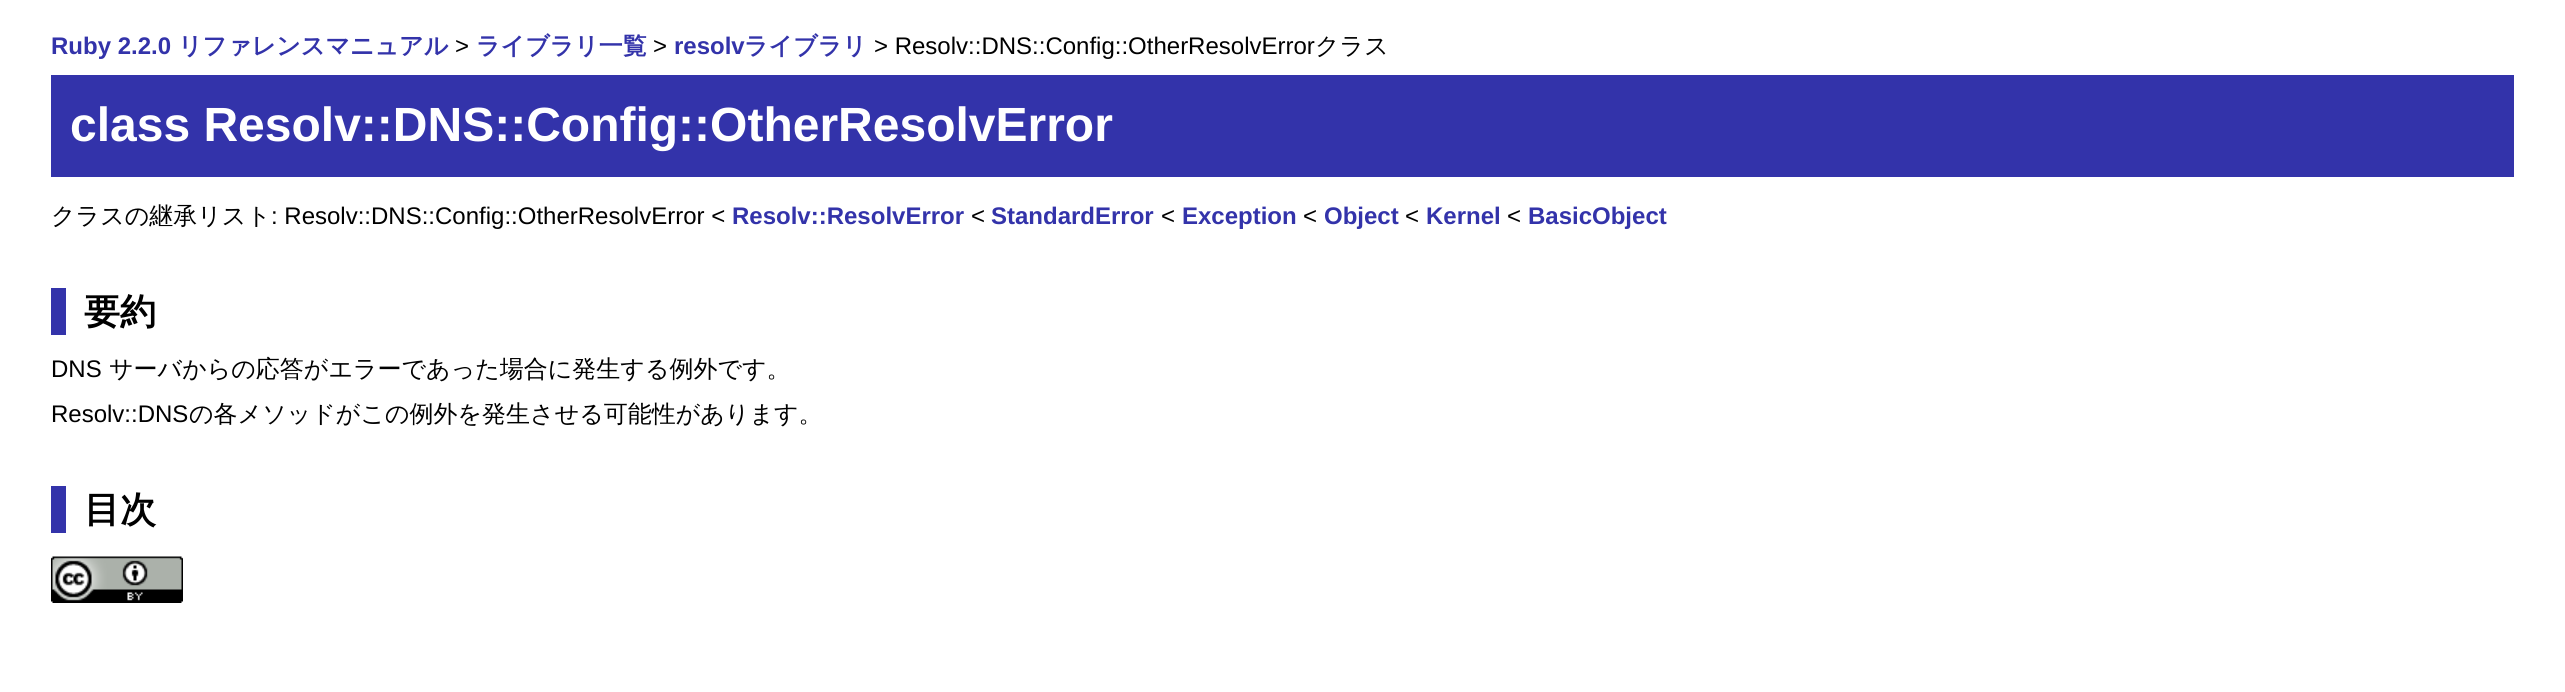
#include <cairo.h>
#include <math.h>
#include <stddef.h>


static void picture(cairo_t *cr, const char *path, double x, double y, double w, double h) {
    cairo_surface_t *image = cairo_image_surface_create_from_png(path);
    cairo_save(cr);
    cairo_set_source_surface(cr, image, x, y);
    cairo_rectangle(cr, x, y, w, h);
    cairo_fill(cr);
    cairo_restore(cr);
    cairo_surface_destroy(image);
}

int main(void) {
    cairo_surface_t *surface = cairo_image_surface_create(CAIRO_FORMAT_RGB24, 2565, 692);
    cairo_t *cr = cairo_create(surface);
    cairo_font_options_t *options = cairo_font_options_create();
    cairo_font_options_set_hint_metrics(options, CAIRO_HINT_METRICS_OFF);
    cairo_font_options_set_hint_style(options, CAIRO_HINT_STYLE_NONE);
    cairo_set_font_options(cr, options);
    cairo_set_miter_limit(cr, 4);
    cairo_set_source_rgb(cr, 1, 1, 1);
    cairo_paint(cr);
    cairo_select_font_face(cr, "Liberation Sans", CAIRO_FONT_SLANT_NORMAL, CAIRO_FONT_WEIGHT_BOLD);
    cairo_set_font_size(cr, 24);
    cairo_set_source_rgb(cr, 0.2, 0.2, 0.667);
    cairo_move_to(cr, 51, 54);
    cairo_show_text(cr, "Ruby 2.2.0");
    cairo_select_font_face(cr, "WenQuanYi Zen Hei", CAIRO_FONT_SLANT_NORMAL, CAIRO_FONT_WEIGHT_BOLD);
    cairo_move_to(cr, 178, 54);
    cairo_show_text(cr, "リファレンスマニュアル");
    cairo_select_font_face(cr, "Liberation Sans", CAIRO_FONT_SLANT_NORMAL, CAIRO_FONT_WEIGHT_NORMAL);
    cairo_set_source_rgb(cr, 0, 0, 0);
    cairo_move_to(cr, 455, 54);
    cairo_show_text(cr, ">");
    cairo_select_font_face(cr, "WenQuanYi Zen Hei", CAIRO_FONT_SLANT_NORMAL, CAIRO_FONT_WEIGHT_BOLD);
    cairo_set_source_rgb(cr, 0.2, 0.2, 0.667);
    cairo_move_to(cr, 476, 54);
    cairo_show_text(cr, "ライブラリ一覧");
    cairo_select_font_face(cr, "Liberation Sans", CAIRO_FONT_SLANT_NORMAL, CAIRO_FONT_WEIGHT_NORMAL);
    cairo_set_source_rgb(cr, 0, 0, 0);
    cairo_move_to(cr, 653, 54);
    cairo_show_text(cr, ">");
    cairo_select_font_face(cr, "Liberation Sans", CAIRO_FONT_SLANT_NORMAL, CAIRO_FONT_WEIGHT_BOLD);
    cairo_set_source_rgb(cr, 0.2, 0.2, 0.667);
    cairo_move_to(cr, 674, 54);
    cairo_show_text(cr, "resolv");
    cairo_select_font_face(cr, "WenQuanYi Zen Hei", CAIRO_FONT_SLANT_NORMAL, CAIRO_FONT_WEIGHT_BOLD);
    cairo_move_to(cr, 744, 54);
    cairo_show_text(cr, "ライブラリ");
    cairo_select_font_face(cr, "Liberation Sans", CAIRO_FONT_SLANT_NORMAL, CAIRO_FONT_WEIGHT_NORMAL);
    cairo_set_source_rgb(cr, 0, 0, 0);
    cairo_move_to(cr, 874, 54);
    cairo_show_text(cr, "> Resolv::DNS::Config::OtherResolvError");
    cairo_select_font_face(cr, "WenQuanYi Zen Hei Medium", CAIRO_FONT_SLANT_NORMAL, CAIRO_FONT_WEIGHT_NORMAL);
    cairo_move_to(cr, 1315, 54);
    cairo_show_text(cr, "クラス");
    cairo_set_source_rgb(cr, 0.2, 0.2, 0.667);
    cairo_rectangle(cr, 51, 75, 2463, 102);
    cairo_fill(cr);
    cairo_select_font_face(cr, "Liberation Sans", CAIRO_FONT_SLANT_NORMAL, CAIRO_FONT_WEIGHT_BOLD);
    cairo_set_font_size(cr, 48);
    cairo_set_source_rgb(cr, 1, 1, 1);
    cairo_move_to(cr, 70, 141);
    cairo_show_text(cr, "class Resolv::DNS::Config::OtherResolvError");
    cairo_select_font_face(cr, "WenQuanYi Zen Hei Medium", CAIRO_FONT_SLANT_NORMAL, CAIRO_FONT_WEIGHT_NORMAL);
    cairo_set_font_size(cr, 24);
    cairo_set_source_rgb(cr, 0, 0, 0);
    cairo_move_to(cr, 51, 224);
    cairo_show_text(cr, "クラスの継承リスト");
    cairo_select_font_face(cr, "Liberation Sans", CAIRO_FONT_SLANT_NORMAL, CAIRO_FONT_WEIGHT_NORMAL);
    cairo_move_to(cr, 271, 224);
    cairo_show_text(cr, ": Resolv::DNS::Config::OtherResolvError <");
    cairo_select_font_face(cr, "Liberation Sans", CAIRO_FONT_SLANT_NORMAL, CAIRO_FONT_WEIGHT_BOLD);
    cairo_set_source_rgb(cr, 0.2, 0.2, 0.667);
    cairo_move_to(cr, 732, 224);
    cairo_show_text(cr, "Resolv::ResolvError");
    cairo_select_font_face(cr, "Liberation Sans", CAIRO_FONT_SLANT_NORMAL, CAIRO_FONT_WEIGHT_NORMAL);
    cairo_set_source_rgb(cr, 0, 0, 0);
    cairo_move_to(cr, 971, 224);
    cairo_show_text(cr, "<");
    cairo_select_font_face(cr, "Liberation Sans", CAIRO_FONT_SLANT_NORMAL, CAIRO_FONT_WEIGHT_BOLD);
    cairo_set_source_rgb(cr, 0.2, 0.2, 0.667);
    cairo_move_to(cr, 991, 224);
    cairo_show_text(cr, "StandardError");
    cairo_select_font_face(cr, "Liberation Sans", CAIRO_FONT_SLANT_NORMAL, CAIRO_FONT_WEIGHT_NORMAL);
    cairo_set_source_rgb(cr, 0, 0, 0);
    cairo_move_to(cr, 1161, 224);
    cairo_show_text(cr, "<");
    cairo_select_font_face(cr, "Liberation Sans", CAIRO_FONT_SLANT_NORMAL, CAIRO_FONT_WEIGHT_BOLD);
    cairo_set_source_rgb(cr, 0.2, 0.2, 0.667);
    cairo_move_to(cr, 1182, 224);
    cairo_show_text(cr, "Exception");
    cairo_select_font_face(cr, "Liberation Sans", CAIRO_FONT_SLANT_NORMAL, CAIRO_FONT_WEIGHT_NORMAL);
    cairo_set_source_rgb(cr, 0, 0, 0);
    cairo_move_to(cr, 1303, 224);
    cairo_show_text(cr, "<");
    cairo_select_font_face(cr, "Liberation Sans", CAIRO_FONT_SLANT_NORMAL, CAIRO_FONT_WEIGHT_BOLD);
    cairo_set_source_rgb(cr, 0.2, 0.2, 0.667);
    cairo_move_to(cr, 1324, 224);
    cairo_show_text(cr, "Object");
    cairo_select_font_face(cr, "Liberation Sans", CAIRO_FONT_SLANT_NORMAL, CAIRO_FONT_WEIGHT_NORMAL);
    cairo_set_source_rgb(cr, 0, 0, 0);
    cairo_move_to(cr, 1405, 224);
    cairo_show_text(cr, "<");
    cairo_select_font_face(cr, "Liberation Sans", CAIRO_FONT_SLANT_NORMAL, CAIRO_FONT_WEIGHT_BOLD);
    cairo_set_source_rgb(cr, 0.2, 0.2, 0.667);
    cairo_move_to(cr, 1426, 224);
    cairo_show_text(cr, "Kernel");
    cairo_select_font_face(cr, "Liberation Sans", CAIRO_FONT_SLANT_NORMAL, CAIRO_FONT_WEIGHT_NORMAL);
    cairo_set_source_rgb(cr, 0, 0, 0);
    cairo_move_to(cr, 1507, 224);
    cairo_show_text(cr, "<");
    cairo_select_font_face(cr, "Liberation Sans", CAIRO_FONT_SLANT_NORMAL, CAIRO_FONT_WEIGHT_BOLD);
    cairo_set_source_rgb(cr, 0.2, 0.2, 0.667);
    cairo_move_to(cr, 1528, 224);
    cairo_show_text(cr, "BasicObject");
    cairo_rectangle(cr, 51, 288, 15, 47);
    cairo_fill(cr);
    cairo_select_font_face(cr, "WenQuanYi Zen Hei", CAIRO_FONT_SLANT_NORMAL, CAIRO_FONT_WEIGHT_BOLD);
    cairo_set_font_size(cr, 36);
    cairo_set_source_rgb(cr, 0, 0, 0);
    cairo_move_to(cr, 84, 324);
    cairo_show_text(cr, "要約");
    cairo_select_font_face(cr, "Liberation Sans", CAIRO_FONT_SLANT_NORMAL, CAIRO_FONT_WEIGHT_NORMAL);
    cairo_set_font_size(cr, 24);
    cairo_move_to(cr, 51, 377);
    cairo_show_text(cr, "DNS");
    cairo_select_font_face(cr, "WenQuanYi Zen Hei Medium", CAIRO_FONT_SLANT_NORMAL, CAIRO_FONT_WEIGHT_NORMAL);
    cairo_move_to(cr, 109, 377);
    cairo_show_text(cr, "サーバからの応答がエラーであった場合に発生する例外です。");
    cairo_select_font_face(cr, "Liberation Sans", CAIRO_FONT_SLANT_NORMAL, CAIRO_FONT_WEIGHT_NORMAL);
    cairo_move_to(cr, 51, 422);
    cairo_show_text(cr, "Resolv::DNS");
    cairo_select_font_face(cr, "WenQuanYi Zen Hei Medium", CAIRO_FONT_SLANT_NORMAL, CAIRO_FONT_WEIGHT_NORMAL);
    cairo_move_to(cr, 189, 422);
    cairo_show_text(cr, "の各メソッドがこの例外を発生させる可能性があります。");
    cairo_set_source_rgb(cr, 0.2, 0.2, 0.667);
    cairo_rectangle(cr, 51, 486, 15, 47);
    cairo_fill(cr);
    cairo_select_font_face(cr, "WenQuanYi Zen Hei", CAIRO_FONT_SLANT_NORMAL, CAIRO_FONT_WEIGHT_BOLD);
    cairo_set_font_size(cr, 36);
    cairo_set_source_rgb(cr, 0, 0, 0);
    cairo_move_to(cr, 84, 522);
    cairo_show_text(cr, "目次");
    picture(cr, "img1.png", 51, 556, 132, 47);
    cairo_surface_write_to_png(surface, "page.png");
    cairo_font_options_destroy(options);
    cairo_destroy(cr);
    cairo_surface_destroy(surface);
    return 0;
}
